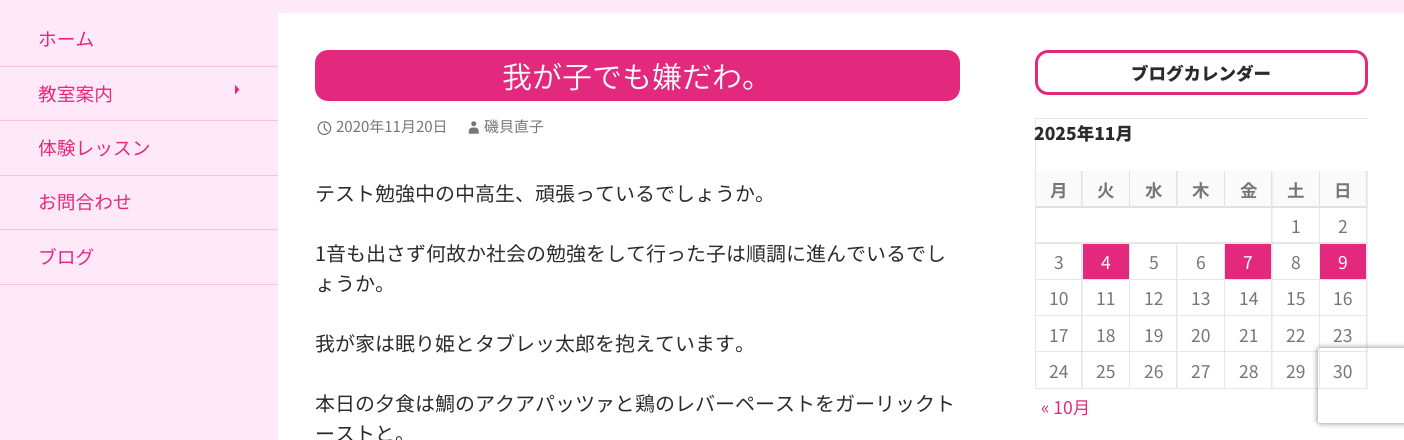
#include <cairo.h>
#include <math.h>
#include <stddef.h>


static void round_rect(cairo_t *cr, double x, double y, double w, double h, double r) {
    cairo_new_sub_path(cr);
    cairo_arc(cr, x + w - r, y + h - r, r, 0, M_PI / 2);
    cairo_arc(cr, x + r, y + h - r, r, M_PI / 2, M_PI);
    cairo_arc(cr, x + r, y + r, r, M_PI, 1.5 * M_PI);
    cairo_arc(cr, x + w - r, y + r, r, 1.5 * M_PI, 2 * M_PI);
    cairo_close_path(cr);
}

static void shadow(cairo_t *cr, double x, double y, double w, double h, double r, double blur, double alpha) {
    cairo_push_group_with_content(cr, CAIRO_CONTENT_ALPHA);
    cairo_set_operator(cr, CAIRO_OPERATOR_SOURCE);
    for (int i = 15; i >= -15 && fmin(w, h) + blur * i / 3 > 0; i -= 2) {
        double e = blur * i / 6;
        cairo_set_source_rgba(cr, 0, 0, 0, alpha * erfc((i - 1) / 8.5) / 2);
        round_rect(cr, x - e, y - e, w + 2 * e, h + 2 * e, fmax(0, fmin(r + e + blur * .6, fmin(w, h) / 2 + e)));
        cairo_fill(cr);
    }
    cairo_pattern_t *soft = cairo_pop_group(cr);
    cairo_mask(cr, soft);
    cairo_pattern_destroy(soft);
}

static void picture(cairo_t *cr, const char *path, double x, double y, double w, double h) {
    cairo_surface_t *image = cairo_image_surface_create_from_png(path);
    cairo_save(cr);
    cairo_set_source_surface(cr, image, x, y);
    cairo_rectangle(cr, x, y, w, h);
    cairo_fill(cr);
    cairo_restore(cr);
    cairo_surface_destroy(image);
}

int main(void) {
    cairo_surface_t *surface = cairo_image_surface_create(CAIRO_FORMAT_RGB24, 1404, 440);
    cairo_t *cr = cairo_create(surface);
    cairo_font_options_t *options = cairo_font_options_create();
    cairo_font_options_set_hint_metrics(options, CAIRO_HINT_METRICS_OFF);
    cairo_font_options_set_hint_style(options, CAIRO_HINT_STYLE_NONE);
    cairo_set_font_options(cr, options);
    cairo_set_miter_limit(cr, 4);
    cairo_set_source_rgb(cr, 1, 0.91, 0.965);
    cairo_paint(cr);
    cairo_set_source_rgb(cr, 1, 1, 1);
    cairo_rectangle(cr, 278, 13, 1126, 427);
    cairo_fill(cr);
    cairo_set_source_rgb(cr, 1, 0.929, 0.973);
    cairo_rectangle(cr, 0, 285, 278, 1);
    cairo_fill(cr);
    cairo_set_source_rgb(cr, 0.976, 0.761, 0.871);
    cairo_rectangle(cr, 0, 66, 278, 1);
    cairo_fill(cr);
    cairo_select_font_face(cr, "Noto Sans JP", CAIRO_FONT_SLANT_NORMAL, CAIRO_FONT_WEIGHT_NORMAL);
    cairo_set_font_size(cr, 18.75);
    cairo_set_source_rgb(cr, 0.89, 0.161, 0.49);
    cairo_move_to(cr, 38, 46);
    cairo_show_text(cr, "ホーム");
    cairo_set_source_rgb(cr, 0.976, 0.761, 0.871);
    cairo_rectangle(cr, 0, 120, 278, 1);
    cairo_fill(cr);
    cairo_set_source_rgb(cr, 0.89, 0.161, 0.49);
    cairo_move_to(cr, 38, 101);
    cairo_show_text(cr, "教室案内");
    cairo_new_path(cr);
    cairo_move_to(cr, 235, 94.5);
    cairo_line_to(cr, 239.5, 89.5);
    cairo_line_to(cr, 235, 85);
    cairo_close_path(cr);
    cairo_fill(cr);
    cairo_set_source_rgb(cr, 0.976, 0.761, 0.871);
    cairo_rectangle(cr, 0, 175, 278, 1);
    cairo_fill(cr);
    cairo_set_source_rgb(cr, 0.89, 0.161, 0.49);
    cairo_move_to(cr, 38, 155);
    cairo_show_text(cr, "体験レッスン");
    cairo_set_source_rgb(cr, 0.976, 0.761, 0.871);
    cairo_rectangle(cr, 0, 229, 278, 1);
    cairo_fill(cr);
    cairo_set_source_rgb(cr, 0.89, 0.161, 0.49);
    cairo_move_to(cr, 38, 209);
    cairo_show_text(cr, "お問合わせ");
    cairo_set_source_rgb(cr, 0.976, 0.761, 0.871);
    cairo_rectangle(cr, 0, 284, 278, 1);
    cairo_fill(cr);
    cairo_set_source_rgb(cr, 0.89, 0.161, 0.49);
    cairo_move_to(cr, 38, 264);
    cairo_show_text(cr, "ブログ");
    round_rect(cr, 315, 50, 645, 51, 13);
    cairo_fill(cr);
    cairo_select_font_face(cr, "Noto Sans JP Light", CAIRO_FONT_SLANT_NORMAL, CAIRO_FONT_WEIGHT_NORMAL);
    cairo_set_font_size(cr, 30);
    cairo_set_source_rgb(cr, 1, 1, 1);
    cairo_move_to(cr, 502, 88);
    cairo_show_text(cr, "我が子でも嫌だわ。");
    picture(cr, "img1.png", 317, 121, 15, 14);
    cairo_select_font_face(cr, "Noto Sans JP", CAIRO_FONT_SLANT_NORMAL, CAIRO_FONT_WEIGHT_NORMAL);
    cairo_set_font_size(cr, 15);
    cairo_set_source_rgb(cr, 0.463, 0.463, 0.463);
    cairo_move_to(cr, 336, 132);
    cairo_show_text(cr, "2020年11月20日");
    picture(cr, "img2.png", 468, 121, 11, 13);
    cairo_move_to(cr, 484, 132);
    cairo_show_text(cr, "磯貝直子");
    cairo_set_font_size(cr, 20);
    cairo_set_source_rgb(cr, 0.169, 0.169, 0.169);
    cairo_move_to(cr, 315, 201);
    cairo_show_text(cr, "テスト勉強中の中高生、頑張っているでしょうか。");
    cairo_move_to(cr, 315, 261);
    cairo_show_text(cr, "1音も出さず何故か社会の勉強をして行った子は順調に進んでいるでし");
    cairo_move_to(cr, 315, 291);
    cairo_show_text(cr, "ょうか。");
    cairo_move_to(cr, 315, 351);
    cairo_show_text(cr, "我が家は眠り姫とタブレッ太郎を抱えています。");
    cairo_move_to(cr, 315, 411);
    cairo_show_text(cr, "本日の夕食は鯛のアクアパッツァと鶏のレバーペーストをガーリックト");
    cairo_move_to(cr, 315, 441);
    cairo_show_text(cr, "ーストと。");
    round_rect(cr, 1036.5, 51.5, 330, 42, 11.5);
    cairo_set_source_rgb(cr, 0.89, 0.161, 0.49);
    cairo_set_line_width(cr, 3);
    cairo_stroke(cr);
    cairo_select_font_face(cr, "Noto Sans JP Black", CAIRO_FONT_SLANT_NORMAL, CAIRO_FONT_WEIGHT_NORMAL);
    cairo_set_font_size(cr, 17.5);
    cairo_set_source_rgb(cr, 0.169, 0.169, 0.169);
    cairo_move_to(cr, 1131, 80);
    cairo_show_text(cr, "ブログカレンダー");
    cairo_set_source_rgb(cr, 0.902, 0.902, 0.902);
    cairo_new_path(cr);
    cairo_move_to(cr, 1035, 118);
    cairo_line_to(cr, 1368, 118);
    cairo_line_to(cr, 1368, 119);
    cairo_line_to(cr, 1036, 119);
    cairo_close_path(cr);
    cairo_fill(cr);
    cairo_set_source_rgba(cr, 0, 0, 0, 0.1);
    cairo_new_path(cr);
    cairo_move_to(cr, 1035, 389);
    cairo_line_to(cr, 1035, 118);
    cairo_line_to(cr, 1036, 119);
    cairo_line_to(cr, 1036, 389);
    cairo_close_path(cr);
    cairo_fill(cr);
    cairo_set_source_rgb(cr, 0.169, 0.169, 0.169);
    cairo_move_to(cr, 1034, 140);
    cairo_show_text(cr, "2025年11月");
    cairo_set_source_rgb(cr, 0.98, 0.98, 0.98);
    cairo_rectangle(cr, 1036, 171, 332, 37);
    cairo_fill(cr);
    cairo_set_source_rgb(cr, 0.882, 0.882, 0.882);
    cairo_new_path(cr);
    cairo_move_to(cr, 1082.5, 171);
    cairo_line_to(cr, 1082.5, 207.5);
    cairo_line_to(cr, 1081, 206);
    cairo_line_to(cr, 1081, 171);
    cairo_close_path(cr);
    cairo_fill(cr);
    cairo_new_path(cr);
    cairo_move_to(cr, 1082, 208);
    cairo_line_to(cr, 1036, 208);
    cairo_line_to(cr, 1036, 206);
    cairo_line_to(cr, 1081, 206);
    cairo_close_path(cr);
    cairo_fill(cr);
    cairo_select_font_face(cr, "Noto Sans JP", CAIRO_FONT_SLANT_NORMAL, CAIRO_FONT_WEIGHT_BOLD);
    cairo_set_source_rgb(cr, 0.463, 0.463, 0.463);
    cairo_move_to(cr, 1050, 197);
    cairo_show_text(cr, "月");
    cairo_set_source_rgb(cr, 0.882, 0.882, 0.882);
    cairo_new_path(cr);
    cairo_move_to(cr, 1130, 171);
    cairo_line_to(cr, 1130, 207.5);
    cairo_line_to(cr, 1129, 206);
    cairo_line_to(cr, 1129, 171);
    cairo_close_path(cr);
    cairo_fill(cr);
    cairo_set_source_rgba(cr, 0, 0, 0, 0.1);
    cairo_new_path(cr);
    cairo_move_to(cr, 1130, 208);
    cairo_line_to(cr, 1082, 208);
    cairo_line_to(cr, 1082, 206);
    cairo_line_to(cr, 1129, 206);
    cairo_close_path(cr);
    cairo_fill(cr);
    cairo_set_source_rgb(cr, 0.463, 0.463, 0.463);
    cairo_move_to(cr, 1097, 197);
    cairo_show_text(cr, "火");
    cairo_set_source_rgb(cr, 0.882, 0.882, 0.882);
    cairo_new_path(cr);
    cairo_move_to(cr, 1177.5, 171);
    cairo_line_to(cr, 1177.5, 207.5);
    cairo_line_to(cr, 1176, 206);
    cairo_line_to(cr, 1176, 171);
    cairo_close_path(cr);
    cairo_fill(cr);
    cairo_set_source_rgba(cr, 0, 0, 0, 0.1);
    cairo_new_path(cr);
    cairo_move_to(cr, 1178, 208);
    cairo_line_to(cr, 1130, 208);
    cairo_line_to(cr, 1130, 206);
    cairo_line_to(cr, 1176, 206);
    cairo_close_path(cr);
    cairo_fill(cr);
    cairo_set_source_rgb(cr, 0.463, 0.463, 0.463);
    cairo_move_to(cr, 1145, 197);
    cairo_show_text(cr, "水");
    cairo_set_source_rgb(cr, 0.882, 0.882, 0.882);
    cairo_new_path(cr);
    cairo_move_to(cr, 1225, 171);
    cairo_line_to(cr, 1225, 207.5);
    cairo_line_to(cr, 1224, 206);
    cairo_line_to(cr, 1224, 171);
    cairo_close_path(cr);
    cairo_fill(cr);
    cairo_new_path(cr);
    cairo_move_to(cr, 1225, 208);
    cairo_line_to(cr, 1178, 208);
    cairo_line_to(cr, 1178, 206);
    cairo_line_to(cr, 1224, 206);
    cairo_close_path(cr);
    cairo_fill(cr);
    cairo_set_source_rgb(cr, 0.463, 0.463, 0.463);
    cairo_move_to(cr, 1192, 197);
    cairo_show_text(cr, "木");
    cairo_set_source_rgb(cr, 0.882, 0.882, 0.882);
    cairo_new_path(cr);
    cairo_move_to(cr, 1272.5, 171);
    cairo_line_to(cr, 1272.5, 207.5);
    cairo_line_to(cr, 1271, 206);
    cairo_line_to(cr, 1271, 171);
    cairo_close_path(cr);
    cairo_fill(cr);
    cairo_new_path(cr);
    cairo_move_to(cr, 1272, 208);
    cairo_line_to(cr, 1225, 208);
    cairo_line_to(cr, 1225, 206);
    cairo_line_to(cr, 1271, 206);
    cairo_close_path(cr);
    cairo_fill(cr);
    cairo_set_source_rgb(cr, 0.463, 0.463, 0.463);
    cairo_move_to(cr, 1240, 197);
    cairo_show_text(cr, "金");
    cairo_set_source_rgb(cr, 0.882, 0.882, 0.882);
    cairo_new_path(cr);
    cairo_move_to(cr, 1320, 171);
    cairo_line_to(cr, 1320, 207.5);
    cairo_line_to(cr, 1319, 206);
    cairo_line_to(cr, 1319, 171);
    cairo_close_path(cr);
    cairo_fill(cr);
    cairo_set_source_rgba(cr, 0, 0, 0, 0.1);
    cairo_new_path(cr);
    cairo_move_to(cr, 1320, 208);
    cairo_line_to(cr, 1272, 208);
    cairo_line_to(cr, 1272, 206);
    cairo_line_to(cr, 1319, 206);
    cairo_close_path(cr);
    cairo_fill(cr);
    cairo_set_source_rgb(cr, 0.463, 0.463, 0.463);
    cairo_move_to(cr, 1287, 197);
    cairo_show_text(cr, "土");
    cairo_set_source_rgb(cr, 0.882, 0.882, 0.882);
    cairo_new_path(cr);
    cairo_move_to(cr, 1367.5, 171);
    cairo_line_to(cr, 1367.5, 207.5);
    cairo_line_to(cr, 1366, 206);
    cairo_line_to(cr, 1366, 171);
    cairo_close_path(cr);
    cairo_fill(cr);
    cairo_set_source_rgba(cr, 0, 0, 0, 0.1);
    cairo_new_path(cr);
    cairo_move_to(cr, 1368, 208);
    cairo_line_to(cr, 1320, 208);
    cairo_line_to(cr, 1320, 206);
    cairo_line_to(cr, 1366, 206);
    cairo_close_path(cr);
    cairo_fill(cr);
    cairo_set_source_rgb(cr, 0.463, 0.463, 0.463);
    cairo_move_to(cr, 1334, 197);
    cairo_show_text(cr, "日");
    cairo_set_source_rgb(cr, 0.902, 0.902, 0.902);
    cairo_new_path(cr);
    cairo_move_to(cr, 1272.5, 207.5);
    cairo_line_to(cr, 1272.5, 244);
    cairo_line_to(cr, 1271, 242.5);
    cairo_line_to(cr, 1271, 207.5);
    cairo_close_path(cr);
    cairo_fill(cr);
    cairo_set_source_rgba(cr, 0, 0, 0, 0.1);
    cairo_new_path(cr);
    cairo_move_to(cr, 1272, 244);
    cairo_line_to(cr, 1036, 244);
    cairo_line_to(cr, 1036, 242);
    cairo_line_to(cr, 1271, 242);
    cairo_close_path(cr);
    cairo_fill(cr);
    cairo_set_source_rgb(cr, 0.902, 0.902, 0.902);
    cairo_new_path(cr);
    cairo_move_to(cr, 1320, 207.5);
    cairo_line_to(cr, 1320, 244);
    cairo_line_to(cr, 1319, 242.5);
    cairo_line_to(cr, 1319, 207.5);
    cairo_close_path(cr);
    cairo_fill(cr);
    cairo_set_source_rgba(cr, 0, 0, 0, 0.1);
    cairo_new_path(cr);
    cairo_move_to(cr, 1320, 244);
    cairo_line_to(cr, 1272, 244);
    cairo_line_to(cr, 1272, 242);
    cairo_line_to(cr, 1319, 242);
    cairo_close_path(cr);
    cairo_fill(cr);
    cairo_select_font_face(cr, "Noto Sans JP", CAIRO_FONT_SLANT_NORMAL, CAIRO_FONT_WEIGHT_NORMAL);
    cairo_set_source_rgb(cr, 0.463, 0.463, 0.463);
    cairo_move_to(cr, 1291, 233);
    cairo_show_text(cr, "1");
    cairo_set_source_rgb(cr, 0.902, 0.902, 0.902);
    cairo_new_path(cr);
    cairo_move_to(cr, 1367.5, 207.5);
    cairo_line_to(cr, 1367.5, 244);
    cairo_line_to(cr, 1366, 242.5);
    cairo_line_to(cr, 1366, 207.5);
    cairo_close_path(cr);
    cairo_fill(cr);
    cairo_set_source_rgba(cr, 0, 0, 0, 0.1);
    cairo_new_path(cr);
    cairo_move_to(cr, 1368, 244);
    cairo_line_to(cr, 1320, 244);
    cairo_line_to(cr, 1320, 242);
    cairo_line_to(cr, 1366, 242);
    cairo_close_path(cr);
    cairo_fill(cr);
    cairo_set_source_rgb(cr, 0.463, 0.463, 0.463);
    cairo_move_to(cr, 1338, 233);
    cairo_show_text(cr, "2");
    cairo_set_source_rgb(cr, 0.902, 0.902, 0.902);
    cairo_new_path(cr);
    cairo_move_to(cr, 1082.5, 244);
    cairo_line_to(cr, 1082.5, 280);
    cairo_line_to(cr, 1081, 279);
    cairo_line_to(cr, 1081, 244);
    cairo_close_path(cr);
    cairo_fill(cr);
    cairo_set_source_rgba(cr, 0, 0, 0, 0.1);
    cairo_new_path(cr);
    cairo_move_to(cr, 1082, 280);
    cairo_line_to(cr, 1036, 280);
    cairo_line_to(cr, 1036, 279);
    cairo_line_to(cr, 1081, 279);
    cairo_close_path(cr);
    cairo_fill(cr);
    cairo_set_source_rgb(cr, 0.463, 0.463, 0.463);
    cairo_move_to(cr, 1054, 269);
    cairo_show_text(cr, "3");
    cairo_set_source_rgb(cr, 0.902, 0.902, 0.902);
    cairo_new_path(cr);
    cairo_move_to(cr, 1130, 244);
    cairo_line_to(cr, 1130, 280);
    cairo_line_to(cr, 1129, 279);
    cairo_line_to(cr, 1129, 244);
    cairo_close_path(cr);
    cairo_fill(cr);
    cairo_set_source_rgba(cr, 0, 0, 0, 0.1);
    cairo_new_path(cr);
    cairo_move_to(cr, 1130, 280);
    cairo_line_to(cr, 1082, 280);
    cairo_line_to(cr, 1082, 279);
    cairo_line_to(cr, 1129, 279);
    cairo_close_path(cr);
    cairo_fill(cr);
    cairo_set_source_rgb(cr, 0.89, 0.161, 0.49);
    cairo_rectangle(cr, 1083, 244, 46, 35);
    cairo_fill(cr);
    cairo_set_source_rgb(cr, 1, 1, 1);
    cairo_move_to(cr, 1101, 269);
    cairo_show_text(cr, "4");
    cairo_set_source_rgb(cr, 0.902, 0.902, 0.902);
    cairo_new_path(cr);
    cairo_move_to(cr, 1177.5, 244);
    cairo_line_to(cr, 1177.5, 280);
    cairo_line_to(cr, 1176, 279);
    cairo_line_to(cr, 1176, 244);
    cairo_close_path(cr);
    cairo_fill(cr);
    cairo_set_source_rgba(cr, 0, 0, 0, 0.1);
    cairo_new_path(cr);
    cairo_move_to(cr, 1178, 280);
    cairo_line_to(cr, 1130, 280);
    cairo_line_to(cr, 1130, 279);
    cairo_line_to(cr, 1176, 279);
    cairo_close_path(cr);
    cairo_fill(cr);
    cairo_set_source_rgb(cr, 0.463, 0.463, 0.463);
    cairo_move_to(cr, 1149, 269);
    cairo_show_text(cr, "5");
    cairo_set_source_rgb(cr, 0.902, 0.902, 0.902);
    cairo_new_path(cr);
    cairo_move_to(cr, 1225, 244);
    cairo_line_to(cr, 1225, 280);
    cairo_line_to(cr, 1224, 279);
    cairo_line_to(cr, 1224, 244);
    cairo_close_path(cr);
    cairo_fill(cr);
    cairo_set_source_rgba(cr, 0, 0, 0, 0.1);
    cairo_new_path(cr);
    cairo_move_to(cr, 1225, 280);
    cairo_line_to(cr, 1178, 280);
    cairo_line_to(cr, 1178, 279);
    cairo_line_to(cr, 1224, 279);
    cairo_close_path(cr);
    cairo_fill(cr);
    cairo_set_source_rgb(cr, 0.463, 0.463, 0.463);
    cairo_move_to(cr, 1196, 269);
    cairo_show_text(cr, "6");
    cairo_set_source_rgb(cr, 0.902, 0.902, 0.902);
    cairo_new_path(cr);
    cairo_move_to(cr, 1272.5, 244);
    cairo_line_to(cr, 1272.5, 280);
    cairo_line_to(cr, 1271, 279);
    cairo_line_to(cr, 1271, 244);
    cairo_close_path(cr);
    cairo_fill(cr);
    cairo_set_source_rgba(cr, 0, 0, 0, 0.1);
    cairo_new_path(cr);
    cairo_move_to(cr, 1272, 280);
    cairo_line_to(cr, 1225, 280);
    cairo_line_to(cr, 1225, 279);
    cairo_line_to(cr, 1271, 279);
    cairo_close_path(cr);
    cairo_fill(cr);
    cairo_set_source_rgb(cr, 0.89, 0.161, 0.49);
    cairo_rectangle(cr, 1225, 244, 46, 35);
    cairo_fill(cr);
    cairo_set_source_rgb(cr, 1, 1, 1);
    cairo_move_to(cr, 1243, 269);
    cairo_show_text(cr, "7");
    cairo_set_source_rgb(cr, 0.902, 0.902, 0.902);
    cairo_new_path(cr);
    cairo_move_to(cr, 1320, 244);
    cairo_line_to(cr, 1320, 280);
    cairo_line_to(cr, 1319, 279);
    cairo_line_to(cr, 1319, 244);
    cairo_close_path(cr);
    cairo_fill(cr);
    cairo_set_source_rgba(cr, 0, 0, 0, 0.1);
    cairo_new_path(cr);
    cairo_move_to(cr, 1320, 280);
    cairo_line_to(cr, 1272, 280);
    cairo_line_to(cr, 1272, 279);
    cairo_line_to(cr, 1319, 279);
    cairo_close_path(cr);
    cairo_fill(cr);
    cairo_set_source_rgb(cr, 0.463, 0.463, 0.463);
    cairo_move_to(cr, 1291, 269);
    cairo_show_text(cr, "8");
    cairo_set_source_rgb(cr, 0.902, 0.902, 0.902);
    cairo_new_path(cr);
    cairo_move_to(cr, 1367.5, 244);
    cairo_line_to(cr, 1367.5, 280);
    cairo_line_to(cr, 1366, 279);
    cairo_line_to(cr, 1366, 244);
    cairo_close_path(cr);
    cairo_fill(cr);
    cairo_set_source_rgba(cr, 0, 0, 0, 0.1);
    cairo_new_path(cr);
    cairo_move_to(cr, 1368, 280);
    cairo_line_to(cr, 1320, 280);
    cairo_line_to(cr, 1320, 279);
    cairo_line_to(cr, 1366, 279);
    cairo_close_path(cr);
    cairo_fill(cr);
    cairo_set_source_rgb(cr, 0.89, 0.161, 0.49);
    cairo_rectangle(cr, 1320, 244, 46, 35);
    cairo_fill(cr);
    cairo_set_source_rgb(cr, 1, 1, 1);
    cairo_move_to(cr, 1338, 269);
    cairo_show_text(cr, "9");
    cairo_set_source_rgb(cr, 0.902, 0.902, 0.902);
    cairo_new_path(cr);
    cairo_move_to(cr, 1082.5, 280);
    cairo_line_to(cr, 1082.5, 316);
    cairo_line_to(cr, 1081, 315);
    cairo_line_to(cr, 1081, 280);
    cairo_close_path(cr);
    cairo_fill(cr);
    cairo_set_source_rgba(cr, 0, 0, 0, 0.1);
    cairo_new_path(cr);
    cairo_move_to(cr, 1082, 316);
    cairo_line_to(cr, 1036, 316);
    cairo_line_to(cr, 1036, 315);
    cairo_line_to(cr, 1081, 315);
    cairo_close_path(cr);
    cairo_fill(cr);
    cairo_set_source_rgb(cr, 0.463, 0.463, 0.463);
    cairo_move_to(cr, 1049, 305);
    cairo_show_text(cr, "10");
    cairo_set_source_rgb(cr, 0.902, 0.902, 0.902);
    cairo_new_path(cr);
    cairo_move_to(cr, 1130, 280);
    cairo_line_to(cr, 1130, 316);
    cairo_line_to(cr, 1129, 315);
    cairo_line_to(cr, 1129, 280);
    cairo_close_path(cr);
    cairo_fill(cr);
    cairo_set_source_rgba(cr, 0, 0, 0, 0.1);
    cairo_new_path(cr);
    cairo_move_to(cr, 1130, 316);
    cairo_line_to(cr, 1082, 316);
    cairo_line_to(cr, 1082, 315);
    cairo_line_to(cr, 1129, 315);
    cairo_close_path(cr);
    cairo_fill(cr);
    cairo_set_source_rgb(cr, 0.463, 0.463, 0.463);
    cairo_move_to(cr, 1096, 305);
    cairo_show_text(cr, "11");
    cairo_set_source_rgb(cr, 0.902, 0.902, 0.902);
    cairo_new_path(cr);
    cairo_move_to(cr, 1177.5, 280);
    cairo_line_to(cr, 1177.5, 316);
    cairo_line_to(cr, 1176, 315);
    cairo_line_to(cr, 1176, 280);
    cairo_close_path(cr);
    cairo_fill(cr);
    cairo_set_source_rgba(cr, 0, 0, 0, 0.1);
    cairo_new_path(cr);
    cairo_move_to(cr, 1178, 316);
    cairo_line_to(cr, 1130, 316);
    cairo_line_to(cr, 1130, 315);
    cairo_line_to(cr, 1176, 315);
    cairo_close_path(cr);
    cairo_fill(cr);
    cairo_set_source_rgb(cr, 0.463, 0.463, 0.463);
    cairo_move_to(cr, 1144, 305);
    cairo_show_text(cr, "12");
    cairo_set_source_rgb(cr, 0.902, 0.902, 0.902);
    cairo_new_path(cr);
    cairo_move_to(cr, 1225, 280);
    cairo_line_to(cr, 1225, 316);
    cairo_line_to(cr, 1224, 315);
    cairo_line_to(cr, 1224, 280);
    cairo_close_path(cr);
    cairo_fill(cr);
    cairo_set_source_rgba(cr, 0, 0, 0, 0.1);
    cairo_new_path(cr);
    cairo_move_to(cr, 1225, 316);
    cairo_line_to(cr, 1178, 316);
    cairo_line_to(cr, 1178, 315);
    cairo_line_to(cr, 1224, 315);
    cairo_close_path(cr);
    cairo_fill(cr);
    cairo_set_source_rgb(cr, 0.463, 0.463, 0.463);
    cairo_move_to(cr, 1191, 305);
    cairo_show_text(cr, "13");
    cairo_set_source_rgb(cr, 0.902, 0.902, 0.902);
    cairo_new_path(cr);
    cairo_move_to(cr, 1272.5, 280);
    cairo_line_to(cr, 1272.5, 316);
    cairo_line_to(cr, 1271, 315);
    cairo_line_to(cr, 1271, 280);
    cairo_close_path(cr);
    cairo_fill(cr);
    cairo_set_source_rgba(cr, 0, 0, 0, 0.1);
    cairo_new_path(cr);
    cairo_move_to(cr, 1272, 316);
    cairo_line_to(cr, 1225, 316);
    cairo_line_to(cr, 1225, 315);
    cairo_line_to(cr, 1271, 315);
    cairo_close_path(cr);
    cairo_fill(cr);
    cairo_set_source_rgb(cr, 0.463, 0.463, 0.463);
    cairo_move_to(cr, 1239, 305);
    cairo_show_text(cr, "14");
    cairo_set_source_rgb(cr, 0.902, 0.902, 0.902);
    cairo_new_path(cr);
    cairo_move_to(cr, 1320, 280);
    cairo_line_to(cr, 1320, 316);
    cairo_line_to(cr, 1319, 315);
    cairo_line_to(cr, 1319, 280);
    cairo_close_path(cr);
    cairo_fill(cr);
    cairo_set_source_rgba(cr, 0, 0, 0, 0.1);
    cairo_new_path(cr);
    cairo_move_to(cr, 1320, 316);
    cairo_line_to(cr, 1272, 316);
    cairo_line_to(cr, 1272, 315);
    cairo_line_to(cr, 1319, 315);
    cairo_close_path(cr);
    cairo_fill(cr);
    cairo_set_source_rgb(cr, 0.463, 0.463, 0.463);
    cairo_move_to(cr, 1286, 305);
    cairo_show_text(cr, "15");
    cairo_set_source_rgb(cr, 0.902, 0.902, 0.902);
    cairo_new_path(cr);
    cairo_move_to(cr, 1367.5, 280);
    cairo_line_to(cr, 1367.5, 316);
    cairo_line_to(cr, 1366, 315);
    cairo_line_to(cr, 1366, 280);
    cairo_close_path(cr);
    cairo_fill(cr);
    cairo_set_source_rgba(cr, 0, 0, 0, 0.1);
    cairo_new_path(cr);
    cairo_move_to(cr, 1368, 316);
    cairo_line_to(cr, 1320, 316);
    cairo_line_to(cr, 1320, 315);
    cairo_line_to(cr, 1366, 315);
    cairo_close_path(cr);
    cairo_fill(cr);
    cairo_set_source_rgb(cr, 0.463, 0.463, 0.463);
    cairo_move_to(cr, 1333, 305);
    cairo_show_text(cr, "16");
    cairo_set_source_rgb(cr, 0.902, 0.902, 0.902);
    cairo_new_path(cr);
    cairo_move_to(cr, 1082.5, 316);
    cairo_line_to(cr, 1082.5, 352.5);
    cairo_line_to(cr, 1081, 351);
    cairo_line_to(cr, 1081, 316);
    cairo_close_path(cr);
    cairo_fill(cr);
    cairo_set_source_rgba(cr, 0, 0, 0, 0.1);
    cairo_new_path(cr);
    cairo_move_to(cr, 1082, 352);
    cairo_line_to(cr, 1036, 352);
    cairo_line_to(cr, 1036, 351);
    cairo_line_to(cr, 1081, 351);
    cairo_close_path(cr);
    cairo_fill(cr);
    cairo_set_source_rgb(cr, 0.463, 0.463, 0.463);
    cairo_move_to(cr, 1049, 342);
    cairo_show_text(cr, "17");
    cairo_set_source_rgb(cr, 0.902, 0.902, 0.902);
    cairo_new_path(cr);
    cairo_move_to(cr, 1130, 316);
    cairo_line_to(cr, 1130, 352.5);
    cairo_line_to(cr, 1129, 351);
    cairo_line_to(cr, 1129, 316);
    cairo_close_path(cr);
    cairo_fill(cr);
    cairo_set_source_rgba(cr, 0, 0, 0, 0.1);
    cairo_new_path(cr);
    cairo_move_to(cr, 1130, 352);
    cairo_line_to(cr, 1082, 352);
    cairo_line_to(cr, 1082, 351);
    cairo_line_to(cr, 1129, 351);
    cairo_close_path(cr);
    cairo_fill(cr);
    cairo_set_source_rgb(cr, 0.463, 0.463, 0.463);
    cairo_move_to(cr, 1096, 342);
    cairo_show_text(cr, "18");
    cairo_set_source_rgb(cr, 0.902, 0.902, 0.902);
    cairo_new_path(cr);
    cairo_move_to(cr, 1177.5, 316);
    cairo_line_to(cr, 1177.5, 352.5);
    cairo_line_to(cr, 1176, 351);
    cairo_line_to(cr, 1176, 316);
    cairo_close_path(cr);
    cairo_fill(cr);
    cairo_set_source_rgba(cr, 0, 0, 0, 0.1);
    cairo_new_path(cr);
    cairo_move_to(cr, 1178, 352);
    cairo_line_to(cr, 1130, 352);
    cairo_line_to(cr, 1130, 351);
    cairo_line_to(cr, 1176, 351);
    cairo_close_path(cr);
    cairo_fill(cr);
    cairo_set_source_rgb(cr, 0.463, 0.463, 0.463);
    cairo_move_to(cr, 1144, 342);
    cairo_show_text(cr, "19");
    cairo_set_source_rgb(cr, 0.902, 0.902, 0.902);
    cairo_new_path(cr);
    cairo_move_to(cr, 1225, 316);
    cairo_line_to(cr, 1225, 352.5);
    cairo_line_to(cr, 1224, 351);
    cairo_line_to(cr, 1224, 316);
    cairo_close_path(cr);
    cairo_fill(cr);
    cairo_set_source_rgba(cr, 0, 0, 0, 0.1);
    cairo_new_path(cr);
    cairo_move_to(cr, 1225, 352);
    cairo_line_to(cr, 1178, 352);
    cairo_line_to(cr, 1178, 351);
    cairo_line_to(cr, 1224, 351);
    cairo_close_path(cr);
    cairo_fill(cr);
    cairo_set_source_rgb(cr, 0.463, 0.463, 0.463);
    cairo_move_to(cr, 1191, 342);
    cairo_show_text(cr, "20");
    cairo_set_source_rgb(cr, 0.902, 0.902, 0.902);
    cairo_new_path(cr);
    cairo_move_to(cr, 1272.5, 316);
    cairo_line_to(cr, 1272.5, 352.5);
    cairo_line_to(cr, 1271, 351);
    cairo_line_to(cr, 1271, 316);
    cairo_close_path(cr);
    cairo_fill(cr);
    cairo_set_source_rgba(cr, 0, 0, 0, 0.1);
    cairo_new_path(cr);
    cairo_move_to(cr, 1272, 352);
    cairo_line_to(cr, 1225, 352);
    cairo_line_to(cr, 1225, 351);
    cairo_line_to(cr, 1271, 351);
    cairo_close_path(cr);
    cairo_fill(cr);
    cairo_set_source_rgb(cr, 0.463, 0.463, 0.463);
    cairo_move_to(cr, 1239, 342);
    cairo_show_text(cr, "21");
    cairo_set_source_rgb(cr, 0.902, 0.902, 0.902);
    cairo_new_path(cr);
    cairo_move_to(cr, 1320, 316);
    cairo_line_to(cr, 1320, 352.5);
    cairo_line_to(cr, 1319, 351);
    cairo_line_to(cr, 1319, 316);
    cairo_close_path(cr);
    cairo_fill(cr);
    cairo_set_source_rgba(cr, 0, 0, 0, 0.1);
    cairo_new_path(cr);
    cairo_move_to(cr, 1320, 352);
    cairo_line_to(cr, 1272, 352);
    cairo_line_to(cr, 1272, 351);
    cairo_line_to(cr, 1319, 351);
    cairo_close_path(cr);
    cairo_fill(cr);
    cairo_set_source_rgb(cr, 0.463, 0.463, 0.463);
    cairo_move_to(cr, 1286, 342);
    cairo_show_text(cr, "22");
    cairo_set_source_rgb(cr, 0.902, 0.902, 0.902);
    cairo_new_path(cr);
    cairo_move_to(cr, 1367.5, 316);
    cairo_line_to(cr, 1367.5, 352.5);
    cairo_line_to(cr, 1366, 351);
    cairo_line_to(cr, 1366, 316);
    cairo_close_path(cr);
    cairo_fill(cr);
    cairo_set_source_rgba(cr, 0, 0, 0, 0.1);
    cairo_new_path(cr);
    cairo_move_to(cr, 1368, 352);
    cairo_line_to(cr, 1320, 352);
    cairo_line_to(cr, 1320, 351);
    cairo_line_to(cr, 1366, 351);
    cairo_close_path(cr);
    cairo_fill(cr);
    cairo_set_source_rgb(cr, 0.463, 0.463, 0.463);
    cairo_move_to(cr, 1333, 342);
    cairo_show_text(cr, "23");
    cairo_set_source_rgb(cr, 0.902, 0.902, 0.902);
    cairo_new_path(cr);
    cairo_move_to(cr, 1082.5, 352.5);
    cairo_line_to(cr, 1082.5, 389);
    cairo_line_to(cr, 1081, 387.5);
    cairo_line_to(cr, 1081, 352.5);
    cairo_close_path(cr);
    cairo_fill(cr);
    cairo_set_source_rgba(cr, 0, 0, 0, 0.1);
    cairo_new_path(cr);
    cairo_move_to(cr, 1082, 389);
    cairo_line_to(cr, 1036, 389);
    cairo_line_to(cr, 1036, 388);
    cairo_line_to(cr, 1081, 388);
    cairo_close_path(cr);
    cairo_fill(cr);
    cairo_set_source_rgb(cr, 0.463, 0.463, 0.463);
    cairo_move_to(cr, 1049, 378);
    cairo_show_text(cr, "24");
    cairo_set_source_rgb(cr, 0.902, 0.902, 0.902);
    cairo_new_path(cr);
    cairo_move_to(cr, 1130, 352.5);
    cairo_line_to(cr, 1130, 389);
    cairo_line_to(cr, 1129, 387.5);
    cairo_line_to(cr, 1129, 352.5);
    cairo_close_path(cr);
    cairo_fill(cr);
    cairo_set_source_rgba(cr, 0, 0, 0, 0.1);
    cairo_new_path(cr);
    cairo_move_to(cr, 1130, 389);
    cairo_line_to(cr, 1082, 389);
    cairo_line_to(cr, 1082, 388);
    cairo_line_to(cr, 1129, 388);
    cairo_close_path(cr);
    cairo_fill(cr);
    cairo_set_source_rgb(cr, 0.463, 0.463, 0.463);
    cairo_move_to(cr, 1096, 378);
    cairo_show_text(cr, "25");
    cairo_set_source_rgb(cr, 0.902, 0.902, 0.902);
    cairo_new_path(cr);
    cairo_move_to(cr, 1177.5, 352.5);
    cairo_line_to(cr, 1177.5, 389);
    cairo_line_to(cr, 1176, 387.5);
    cairo_line_to(cr, 1176, 352.5);
    cairo_close_path(cr);
    cairo_fill(cr);
    cairo_set_source_rgba(cr, 0, 0, 0, 0.1);
    cairo_new_path(cr);
    cairo_move_to(cr, 1178, 389);
    cairo_line_to(cr, 1130, 389);
    cairo_line_to(cr, 1130, 388);
    cairo_line_to(cr, 1176, 388);
    cairo_close_path(cr);
    cairo_fill(cr);
    cairo_set_source_rgb(cr, 0.463, 0.463, 0.463);
    cairo_move_to(cr, 1144, 378);
    cairo_show_text(cr, "26");
    cairo_set_source_rgb(cr, 0.902, 0.902, 0.902);
    cairo_new_path(cr);
    cairo_move_to(cr, 1225, 352.5);
    cairo_line_to(cr, 1225, 389);
    cairo_line_to(cr, 1224, 387.5);
    cairo_line_to(cr, 1224, 352.5);
    cairo_close_path(cr);
    cairo_fill(cr);
    cairo_set_source_rgba(cr, 0, 0, 0, 0.1);
    cairo_new_path(cr);
    cairo_move_to(cr, 1225, 389);
    cairo_line_to(cr, 1178, 389);
    cairo_line_to(cr, 1178, 388);
    cairo_line_to(cr, 1224, 388);
    cairo_close_path(cr);
    cairo_fill(cr);
    cairo_set_source_rgb(cr, 0.463, 0.463, 0.463);
    cairo_move_to(cr, 1191, 378);
    cairo_show_text(cr, "27");
    cairo_set_source_rgb(cr, 0.902, 0.902, 0.902);
    cairo_new_path(cr);
    cairo_move_to(cr, 1272.5, 352.5);
    cairo_line_to(cr, 1272.5, 389);
    cairo_line_to(cr, 1271, 387.5);
    cairo_line_to(cr, 1271, 352.5);
    cairo_close_path(cr);
    cairo_fill(cr);
    cairo_set_source_rgba(cr, 0, 0, 0, 0.1);
    cairo_new_path(cr);
    cairo_move_to(cr, 1272, 389);
    cairo_line_to(cr, 1225, 389);
    cairo_line_to(cr, 1225, 388);
    cairo_line_to(cr, 1271, 388);
    cairo_close_path(cr);
    cairo_fill(cr);
    cairo_set_source_rgb(cr, 0.463, 0.463, 0.463);
    cairo_move_to(cr, 1239, 378);
    cairo_show_text(cr, "28");
    cairo_set_source_rgb(cr, 0.902, 0.902, 0.902);
    cairo_new_path(cr);
    cairo_move_to(cr, 1320, 352.5);
    cairo_line_to(cr, 1320, 389);
    cairo_line_to(cr, 1319, 387.5);
    cairo_line_to(cr, 1319, 352.5);
    cairo_close_path(cr);
    cairo_fill(cr);
    cairo_set_source_rgba(cr, 0, 0, 0, 0.1);
    cairo_new_path(cr);
    cairo_move_to(cr, 1320, 389);
    cairo_line_to(cr, 1272, 389);
    cairo_line_to(cr, 1272, 388);
    cairo_line_to(cr, 1319, 388);
    cairo_close_path(cr);
    cairo_fill(cr);
    cairo_set_source_rgb(cr, 0.463, 0.463, 0.463);
    cairo_move_to(cr, 1286, 378);
    cairo_show_text(cr, "29");
    cairo_set_source_rgb(cr, 0.902, 0.902, 0.902);
    cairo_new_path(cr);
    cairo_move_to(cr, 1367.5, 352.5);
    cairo_line_to(cr, 1367.5, 389);
    cairo_line_to(cr, 1366, 387.5);
    cairo_line_to(cr, 1366, 352.5);
    cairo_close_path(cr);
    cairo_fill(cr);
    cairo_set_source_rgba(cr, 0, 0, 0, 0.1);
    cairo_new_path(cr);
    cairo_move_to(cr, 1368, 389);
    cairo_line_to(cr, 1320, 389);
    cairo_line_to(cr, 1320, 388);
    cairo_line_to(cr, 1366, 388);
    cairo_close_path(cr);
    cairo_fill(cr);
    cairo_set_source_rgb(cr, 0.463, 0.463, 0.463);
    cairo_move_to(cr, 1333, 378);
    cairo_show_text(cr, "30");
    cairo_set_source_rgb(cr, 0.89, 0.161, 0.49);
    cairo_move_to(cr, 1041, 414);
    cairo_show_text(cr, "« 10月");
    cairo_save(cr);
    cairo_set_fill_rule(cr, CAIRO_FILL_RULE_EVEN_ODD);
    cairo_new_path(cr);
    cairo_move_to(cr, 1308, 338);
    cairo_line_to(cr, 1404, 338);
    cairo_line_to(cr, 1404, 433);
    cairo_line_to(cr, 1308, 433);
    cairo_close_path(cr);
    cairo_move_to(cr, 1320.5, 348);
    cairo_line_to(cr, 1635.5, 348);
    cairo_curve_to(cr, 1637, 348, 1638, 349, 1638, 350.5);
    cairo_line_to(cr, 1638, 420.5);
    cairo_curve_to(cr, 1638, 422, 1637, 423, 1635.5, 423);
    cairo_line_to(cr, 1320.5, 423);
    cairo_curve_to(cr, 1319, 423, 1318, 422, 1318, 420.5);
    cairo_line_to(cr, 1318, 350.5);
    cairo_curve_to(cr, 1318, 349, 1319, 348, 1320.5, 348);
    cairo_close_path(cr);
    cairo_clip(cr);
    cairo_set_source_rgb(cr, 0.502, 0.502, 0.502);
    shadow(cr, 1318, 348, 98, 75, 2.5, 3, 1);
    cairo_restore(cr);
    cairo_surface_write_to_png(surface, "page.png");
    cairo_font_options_destroy(options);
    cairo_destroy(cr);
    cairo_surface_destroy(surface);
    return 0;
}
